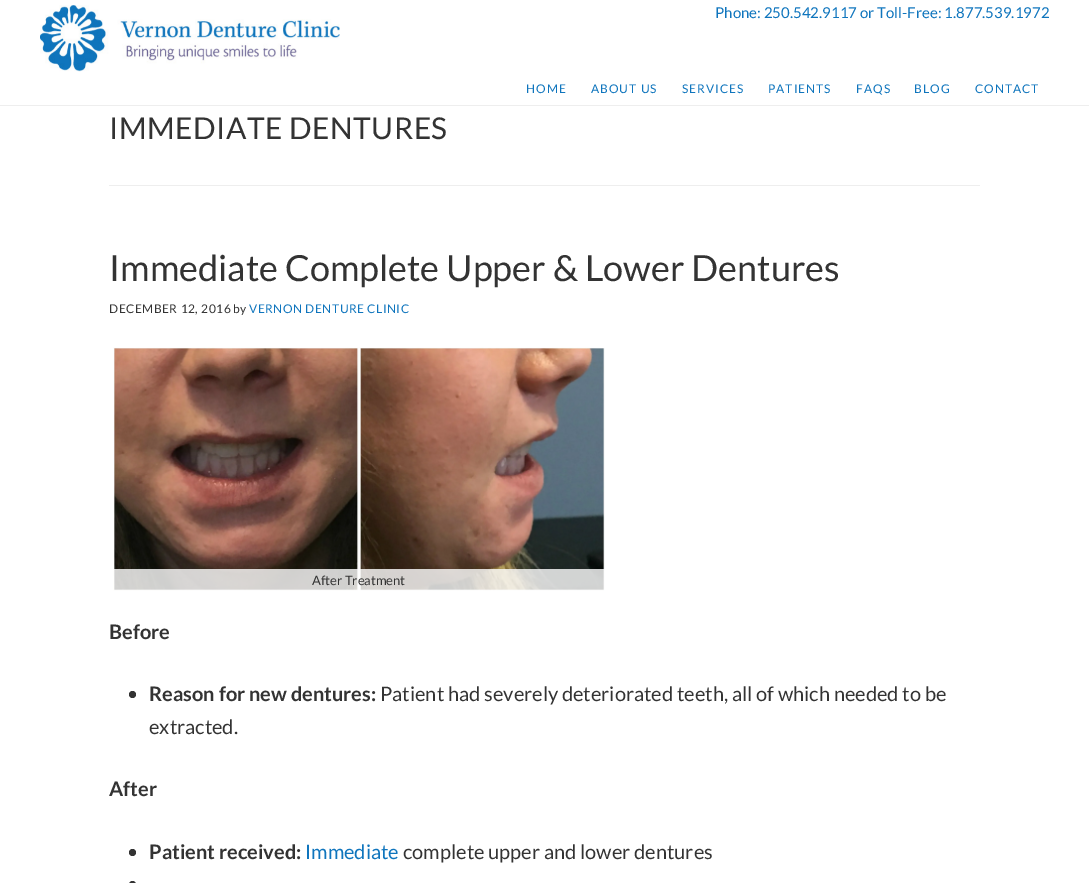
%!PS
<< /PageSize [1089 883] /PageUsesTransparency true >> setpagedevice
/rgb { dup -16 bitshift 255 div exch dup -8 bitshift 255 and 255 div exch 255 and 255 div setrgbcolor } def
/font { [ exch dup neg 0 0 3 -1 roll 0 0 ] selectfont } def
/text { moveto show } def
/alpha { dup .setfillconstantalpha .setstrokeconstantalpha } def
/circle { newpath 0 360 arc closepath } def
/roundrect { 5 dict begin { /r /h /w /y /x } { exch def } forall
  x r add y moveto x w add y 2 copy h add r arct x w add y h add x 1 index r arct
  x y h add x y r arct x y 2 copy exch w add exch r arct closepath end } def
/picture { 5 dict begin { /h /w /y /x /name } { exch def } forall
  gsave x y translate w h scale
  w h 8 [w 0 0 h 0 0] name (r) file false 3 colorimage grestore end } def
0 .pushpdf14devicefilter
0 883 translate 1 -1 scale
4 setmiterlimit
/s1 { /Lato-Regular 15 font 16#0F75BD rgb } def
/s2 { /Lato-Regular 36 font 16#333333 rgb } def
/s3 { /Lato-Regular 12 font 16#333333 rgb } def
/s4 { /Lato-Regular 13 font 16#333333 rgb } def
/s5 { /Lato-Bold 20 font 16#333333 rgb } def
/s6 { /Lato-Regular 20 font 16#333333 rgb } def
/s7 { /Lato-Regular 20 font 16#0F75BD rgb } def
16#FFFFFF rgb
0 0 1089 883 rectfill
16#EEEEEE rgb
0 105 1089 1 rectfill
(pic1.raw) 40 5 300 67 picture
s1
(Phone: 250.542.9117 or Toll-Free: 1.877.539.1972) 715 18 text
/Lato-Regular 12 font
526 93 moveto 1 0 (HOME) ashow
591 93 moveto 1 0 (ABOUT US) ashow
682 93 moveto 1 0 (SERVICES) ashow
768 93 moveto 1 0 (PATIENTS) ashow
856 93 moveto 1 0 (FAQS) ashow
914 93 moveto 1 0 (BLOG) ashow
975 93 moveto 1 0 (CONTACT) ashow
16#EEEEEE rgb
109 185 871 1 rectfill
/Lato-Regular 30 font
16#333333 rgb
109 139 moveto 0.5 0 (IMMEDIATE DENTURES) ashow
s2
(Immediate Complete Upper & Lower Dentures) 109 281 text
/Lato-Regular 12 font
109 313 moveto 0.5 0 (DECEMBER 12, 2016) ashow
(by) 233 313 text
16#0F75BD rgb
249 313 moveto 0.5 0 (VERNON DENTURE CLINIC) ashow
(pic2.raw) 113 347 492 244 picture
0.8 alpha
16#FFFFFF rgb
114 569 491 22 rectfill
1 alpha
s4
(After Treatment) 312 585 text
s5
(Before) 109 639 text
132.5 694.5 3.5 circle fill
(Reason for new dentures:) 149 701 text
s6
(Patient had severely deteriorated teeth, all of which needed to be) 380 701 text
(extracted.) 149 734 text
s5
(After) 109 796 text
132.5 852.5 3.5 circle fill
(Patient received:) 149 859 text
s7
(Immediate) 305 859 text
s6
(complete upper and lower dentures) 403 859 text
129 881 7 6 3.5 roundrect fill
.poppdf14devicefilter showpage
